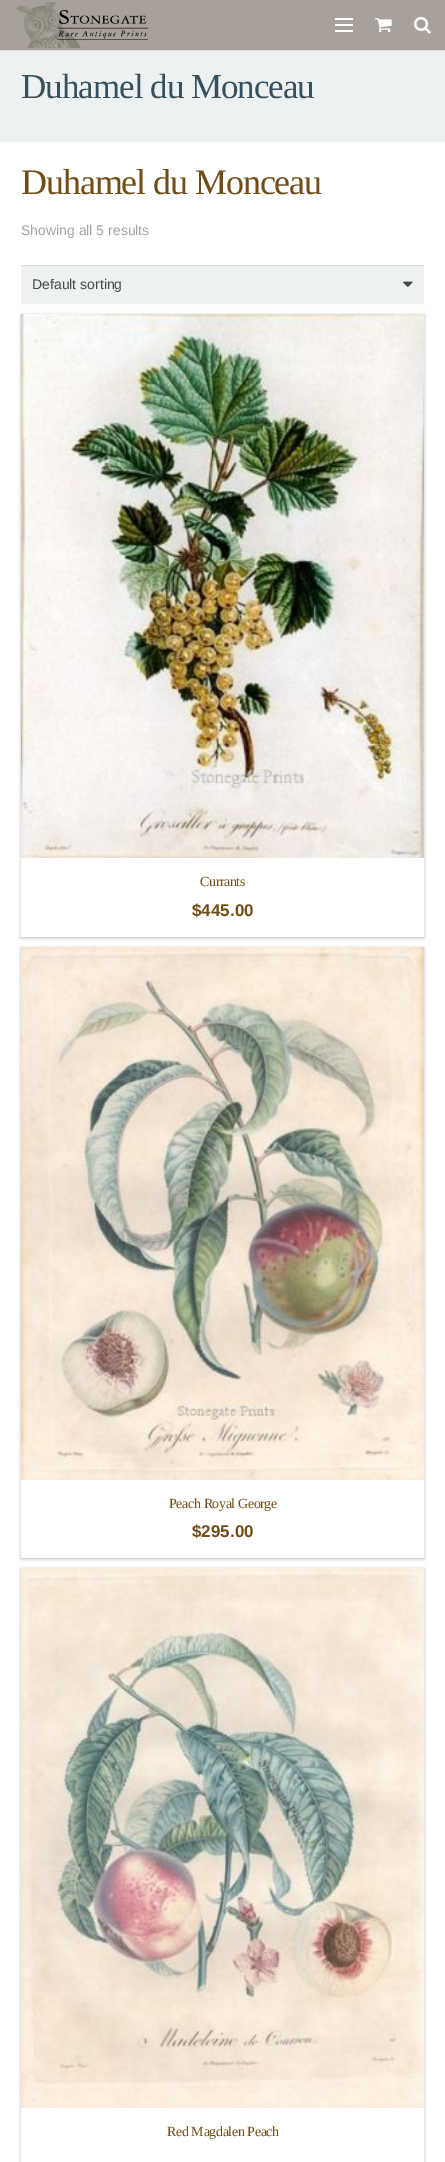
%!PS
<< /PageSize [445 2162] /PageUsesTransparency true >> setpagedevice
/rgb { dup -16 bitshift 255 div exch dup -8 bitshift 255 and 255 div exch 255 and 255 div setrgbcolor } def
/font { [ exch dup neg 0 0 3 -1 roll 0 0 ] selectfont } def
/text { moveto show } def
/alpha { dup .setfillconstantalpha .setstrokeconstantalpha } def
/roundrect { 5 dict begin { /r /h /w /y /x } { exch def } forall
  x r add y moveto x w add y 2 copy h add r arct x w add y h add x 1 index r arct
  x y h add x y r arct x y 2 copy exch w add exch r arct closepath end } def
/shadow { 12 dict begin { /a /b /q /h /w /y /x } { exch def } forall gsave /was 0 def
  9 -2 -9 { dup b mul 4 div /e exch def 1 sub .425 mul 2.718 exch exp 1 add a .99 .min exch div /now exch def
    1 1 now sub 1 was sub div sub alpha /was now def
    w h .min e 2 mul add 0 gt { x e sub y e sub w e 2 mul add h e 2 mul add
      q e add b .6 mul add w h .min 2 div e add .min 0 .max roundrect fill } if } for grestore end } def
/picture { 5 dict begin { /h /w /y /x /name } { exch def } forall
  gsave x y translate w h scale
  w h 8 [w 0 0 h 0 0] name (r) file false 3 colorimage grestore end } def
0 .pushpdf14devicefilter
0 2162 translate 1 -1 scale
4 setmiterlimit
/s1 { /LiberationSans-Regular 14 font 16#A3A3A3 rgb } def
/s2 { /LiberationSans-Regular 14 font 16#474747 rgb } def
/s3 { /LiberationSans-Bold 17 font 16#714D18 rgb } def
16#FFFFFF rgb
0 0 445 2162 rectfill
16#DADEDF rgb
0 50 445 1 rectfill
16#A8A19B rgb
0 0 445 50 rectfill
(pic1.raw) 16 2 132 46 picture
16#FFFFFF rgb
335 24 18 2 rectfill
335 18 18 2 rectfill
335 30 18 2 rectfill
(pic2.raw) 375 18 17 15 picture
(pic3.raw) 414 16 17 18 picture
16#EDF1F2 rgb
0 51 445 91 rectfill
/LiberationSerif-Regular 35 font
16#38505C rgb
21 98 moveto -1 0 (Duhamel du Monceau) ashow
/LiberationSerif-Regular 36 font
16#714D18 rgb
21 194 moveto -1.1 0 (Duhamel du Monceau) ashow
s1
(Showing all 5 results) 21 235 text
16#EDF1F2 rgb
21 266 403 38 rectfill
16#DADEDF rgb
21 265 403 1 rectfill
s2
(Default sorting) 32 289 text
(pic4.raw) 403 281 10 6 picture
gsave
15 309 moveto 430 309 lineto 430 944 lineto 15 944 lineto closepath 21 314 moveto 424 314 lineto 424 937 lineto 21 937 lineto closepath eoclip newpath
16#000000 rgb
21 315 403 623 0 1.5 0.25 shadow
grestore
(pic5.raw) 21 314 403 544 picture
/LiberationSerif-Regular 14 font
16#714D18 rgb
200 886 moveto -0.4 0 (Currants) ashow
s3
($445.00) 192 916 text
gsave
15 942 moveto 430 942 lineto 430 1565 lineto 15 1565 lineto closepath 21 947 moveto 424 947 lineto 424 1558 lineto 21 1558 lineto closepath eoclip newpath
16#000000 rgb
21 948 403 611 0 1.5 0.25 shadow
grestore
(pic6.raw) 21 947 403 533 picture
/LiberationSerif-Regular 14 font
169 1508 moveto -0.4 0 (Peach Royal George) ashow
s3
($295.00) 192 1537 text
gsave
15 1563 moveto 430 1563 lineto 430 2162 lineto 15 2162 lineto closepath 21 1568 moveto 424 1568 lineto 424 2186 lineto 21 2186 lineto closepath eoclip newpath
16#000000 rgb
21 1569 403 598 0 1.5 0.25 shadow
grestore
(pic7.raw) 21 1568 403 540 picture
/LiberationSerif-Regular 14 font
167 2136 moveto -0.4 0 (Red Magdalen Peach) ashow
.poppdf14devicefilter showpage
